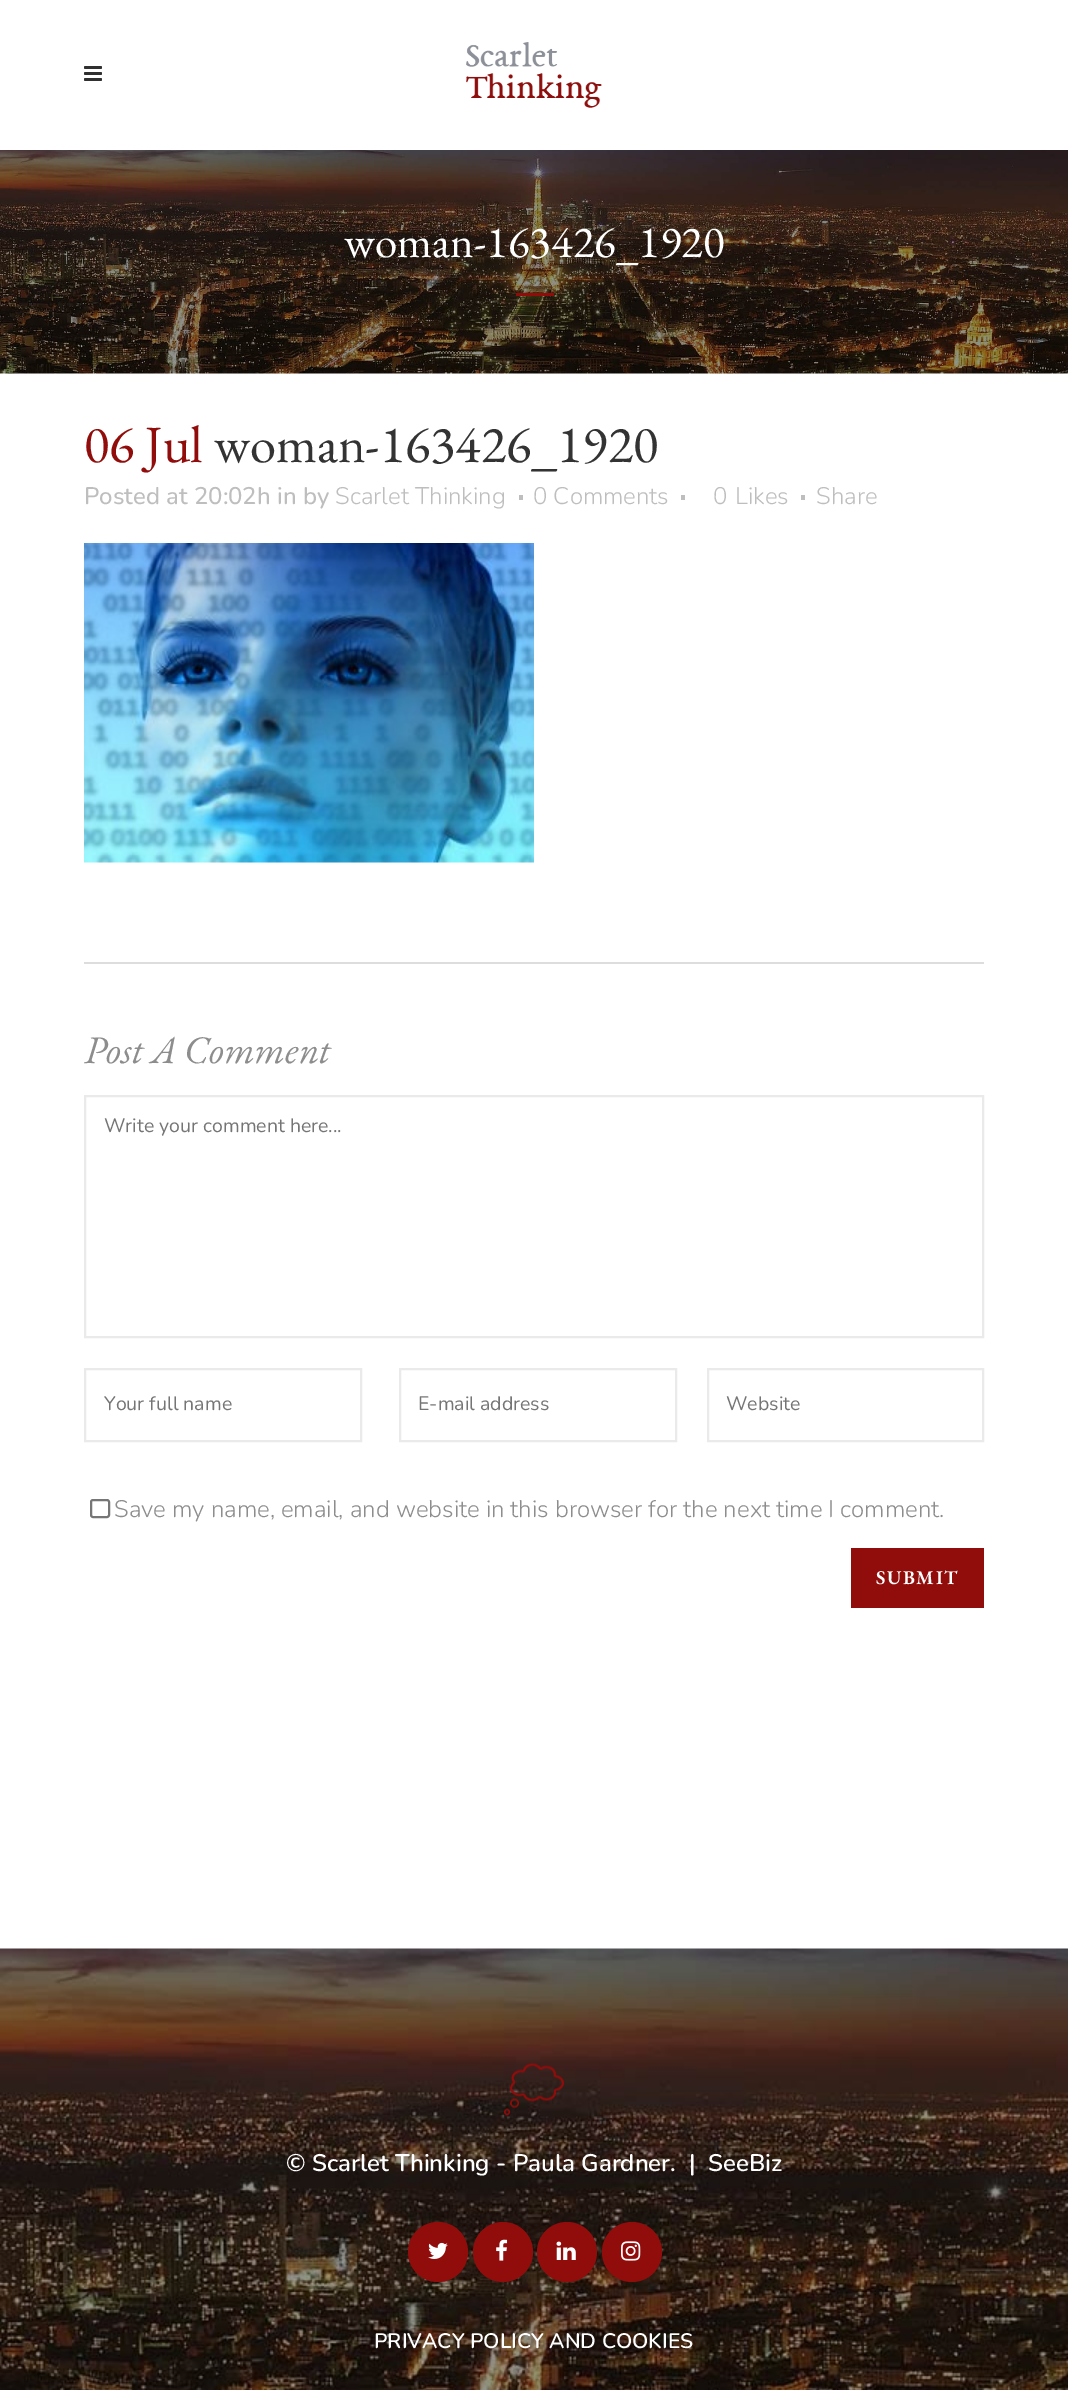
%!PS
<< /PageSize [1068 2390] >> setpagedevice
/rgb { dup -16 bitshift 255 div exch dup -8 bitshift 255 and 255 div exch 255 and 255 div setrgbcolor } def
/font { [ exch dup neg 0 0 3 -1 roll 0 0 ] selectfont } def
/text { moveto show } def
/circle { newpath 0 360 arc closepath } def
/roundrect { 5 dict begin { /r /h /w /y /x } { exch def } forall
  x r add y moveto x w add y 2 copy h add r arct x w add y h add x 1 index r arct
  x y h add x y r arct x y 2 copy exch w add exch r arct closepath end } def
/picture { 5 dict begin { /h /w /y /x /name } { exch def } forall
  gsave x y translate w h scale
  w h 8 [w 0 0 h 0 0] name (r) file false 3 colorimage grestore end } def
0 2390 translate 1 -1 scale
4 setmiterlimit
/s1 { /EBGaramond-Regular 45 font 16#FFFFFF rgb } def
/s2 { /EBGaramond-Regular 52.5 font 16#910D0B rgb } def
/s3 { /EBGaramond-Regular 52.5 font 16#333333 rgb } def
/s4 { /Nunito-Medium 24 font 16#BEBEBE rgb } def
/s5 { /Nunito-Light 24 font 16#BEBEBE rgb } def
/s6 { /EBGaramond-Italic 39 font 16#8D8D8D rgb } def
/s7 { /Nunito-Regular 19.5 font 16#757575 rgb } def
/s8 { /Nunito-Light 24 font 16#8D8D8D rgb } def
/s9 { /Nunito-SemiBold 24 font 16#FFFFFF rgb } def
/s10 { /Nunito-SemiBold 21 font 16#FFFFFF rgb } def
16#FFFFFF rgb
0 0 1068 2390 rectfill
(pic1.raw) 84 66 18 15 picture
(pic2.raw) 466 42 136 66 picture
(pic3.raw) 0 150 1068 224 picture
s1
(woman-163426_1920) 344 257 text
16#910D0B rgb
516 293 38 3 rectfill
s2
(06 Jul) 84 462 text
s3
(woman-163426_1920) 214 462 text
s4
(Posted at 20:02h in by) 84 504 text
s5
(Scarlet Thinking) 335 504 text
519 495 4 5 rectfill
(0 Comments) 533 504 text
681 495 4 5 rectfill
(0) 713 504 text
(Likes) 735 504 text
801 495 4 5 rectfill
(Share) 816 504 text
(pic4.raw) 84 543 450 320 picture
16#DDDDDD rgb
84 962 900 2 rectfill
s6
(Post A Comment) 84 1063 text
16#EAEAEA rgb
2 setlinewidth
85 1096 898 241 rectstroke
s7
(Write your comment here...) 104 1132 text
16#EAEAEA rgb
85 1369 276 72 rectstroke
s7
(Your full name) 104 1410 text
16#EAEAEA rgb
400 1369 276 72 rectstroke
s7
(E-mail address) 418 1410 text
16#EAEAEA rgb
708 1369 275 72 rectstroke
s7
(Website) 726 1410 text
16#767676 rgb
91 1500 18 17 2 roundrect stroke
s8
(Save my name, email, and website in this browser for the next time I comment.) 114 1517 text
16#910D0B rgb
851 1548 133 60 rectfill
/EBGaramond-SemiBold 19.5 font
16#FFFFFF rgb
876 1584 moveto 1.5 0 (SUBMIT) ashow
(pic5.raw) 0 1948 1068 442 picture
(pic6.raw) 504 2063 60 53 picture
s9
(© Scarlet Thinking - Paula Gardner.  |) 286 2171 text
(SeeBiz) 708 2171 text
16#910D0B rgb
438 2252 30 circle fill
(pic7.raw) 428 2242 20 17 picture
503 2252 30 circle fill
(pic8.raw) 496 2239 12 22 picture
567 2252 30 circle fill
(pic9.raw) 556 2241 20 19 picture
632 2252 30 circle fill
(pic10.raw) 621 2241 20 20 picture
s10
(PRIVACY POLICY AND COOKIES) 374 2348 text
showpage
